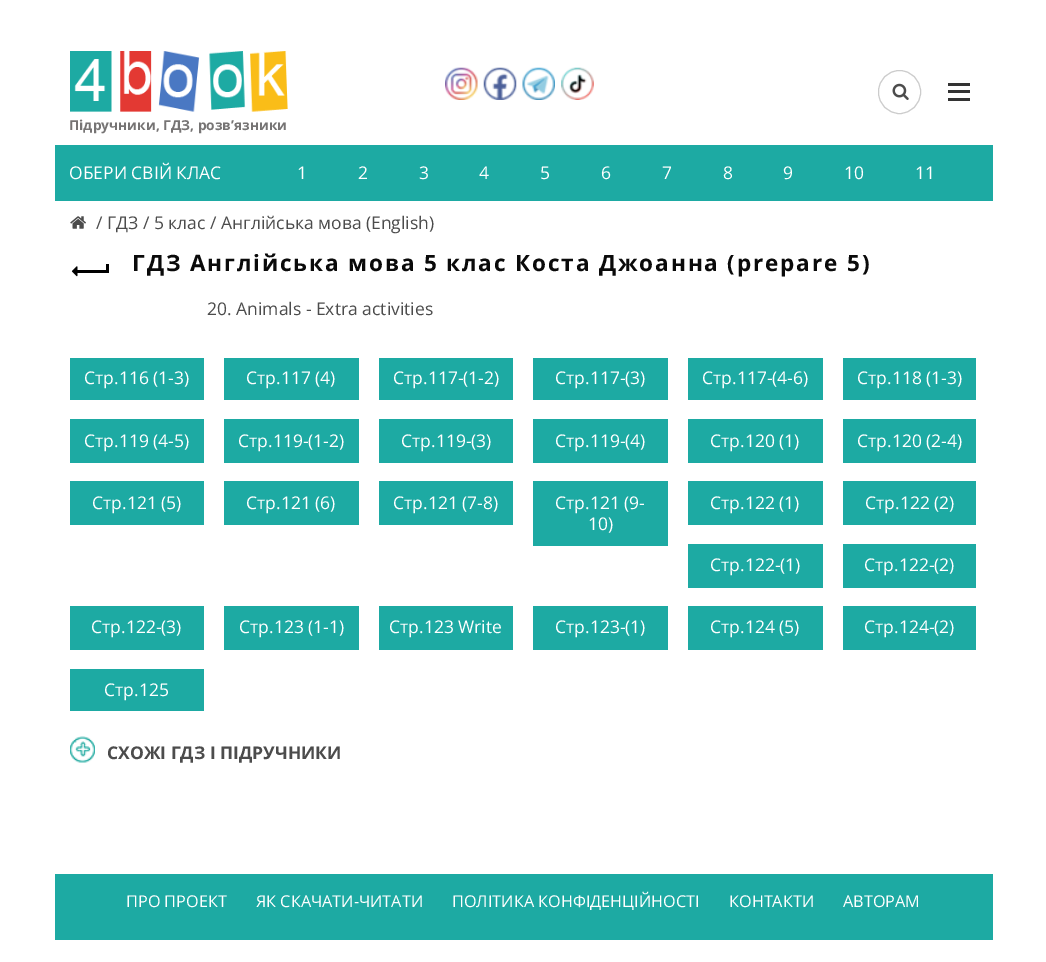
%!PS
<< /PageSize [1046 962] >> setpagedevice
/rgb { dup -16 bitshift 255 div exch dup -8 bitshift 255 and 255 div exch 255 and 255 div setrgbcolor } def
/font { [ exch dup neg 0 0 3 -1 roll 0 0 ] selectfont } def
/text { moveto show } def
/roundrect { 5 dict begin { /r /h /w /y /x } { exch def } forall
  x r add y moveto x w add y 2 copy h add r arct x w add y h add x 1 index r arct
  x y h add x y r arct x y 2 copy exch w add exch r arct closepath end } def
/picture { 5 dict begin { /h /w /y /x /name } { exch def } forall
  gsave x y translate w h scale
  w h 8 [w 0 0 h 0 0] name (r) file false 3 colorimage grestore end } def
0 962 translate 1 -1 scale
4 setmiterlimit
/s1 { /OpenSans-Bold 13.75 font 16#767474 rgb } def
/s2 { /OpenSans-Regular 17.5 font 16#FFFFFF rgb } def
/s3 { /OpenSans-Regular 17.5 font 16#4C4C4C rgb } def
/s4 { /OpenSans-Bold 17.5 font 16#4C4C4C rgb } def
/s5 { /OpenSans-Regular 16.25 font 16#FFFFFF rgb } def
16#FFFFFF rgb
0 0 1046 962 rectfill
(pic1.raw) 445 67 33 33 picture
(pic2.raw) 483 67 34 33 picture
(pic3.raw) 522 67 33 33 picture
(pic4.raw) 561 67 33 33 picture
(pic5.raw) 892 83 17 17 picture
16#CCCCCC rgb
878.5 70.5 42 43 21 roundrect stroke
16#333333 rgb
948 90 22 3 rectfill
948 83 22 3 rectfill
948 98 22 3 rectfill
(pic6.raw) 70 51 218 61 picture
s1
(Підручники, ГДЗ, розв’язники) 69 130 text
16#1DAAA3 rgb
55 145 938 56 rectfill
s2
(ОБЕРИ СВІЙ КЛАС) 69 179 text
(1) 297 179 text
(2) 358 179 text
(3) 419 179 text
(4) 479 179 text
(5) 540 179 text
(6) 601 179 text
(7) 662 179 text
(8) 723 179 text
(9) 783 179 text
(10) 844 179 text
(11) 915 179 text
(pic7.raw) 70 216 16 13 picture
s3
(/ ГДЗ / 5 клас / Англійська мова \(English\)) 96 229 text
16#000000 rgb
76 270 32 3 rectfill
(pic8.raw) 71 266 7 11 picture
106 264 3 9 rectfill
/OpenSans-Bold 22.5 font
16#0A0A0A rgb
132 271 moveto 1.88 0 (ГДЗ Англійська мова 5 клас Коста Джоанна \(prepare 5\)) ashow
s3
(20. Animals - Extra activities) 207 315 text
16#1DAAA3 rgb
70 358 134 42 rectfill
s2
(Стр.116 \(1-3\)) 84 384 text
16#1DAAA3 rgb
224 358 135 42 rectfill
s2
(Стр.117 \(4\)) 246 384 text
16#1DAAA3 rgb
379 358 134 42 rectfill
s2
(Стр.117-\(1-2\)) 393 384 text
16#1DAAA3 rgb
533 358 135 42 rectfill
s2
(Стр.117-\(3\)) 555 384 text
16#1DAAA3 rgb
688 358 135 42 rectfill
s2
(Стр.117-\(4-6\)) 702 384 text
16#1DAAA3 rgb
843 358 133 42 rectfill
s2
(Стр.118 \(1-3\)) 857 384 text
16#1DAAA3 rgb
70 419 134 44 rectfill
s2
(Стр.119 \(4-5\)) 84 447 text
16#1DAAA3 rgb
224 419 135 44 rectfill
s2
(Стр.119-\(1-2\)) 238 447 text
16#1DAAA3 rgb
379 419 134 44 rectfill
s2
(Стр.119-\(3\)) 401 447 text
16#1DAAA3 rgb
533 419 135 44 rectfill
s2
(Стр.119-\(4\)) 555 447 text
16#1DAAA3 rgb
688 419 135 44 rectfill
s2
(Стр.120 \(1\)) 710 447 text
16#1DAAA3 rgb
843 419 133 44 rectfill
s2
(Стр.120 \(2-4\)) 857 447 text
16#1DAAA3 rgb
70 481 134 44 rectfill
s2
(Стр.121 \(5\)) 92 509 text
16#1DAAA3 rgb
224 481 135 44 rectfill
s2
(Стр.121 \(6\)) 246 509 text
16#1DAAA3 rgb
379 481 134 44 rectfill
s2
(Стр.121 \(7-8\)) 393 509 text
16#1DAAA3 rgb
533 481 135 65 rectfill
s2
(Стр.121 \(9-) 555 509 text
(10\)) 588 530 text
16#1DAAA3 rgb
688 481 135 44 rectfill
s2
(Стр.122 \(1\)) 710 509 text
16#1DAAA3 rgb
843 481 133 44 rectfill
s2
(Стр.122 \(2\)) 865 509 text
16#1DAAA3 rgb
688 544 135 44 rectfill
s2
(Стр.122-\(1\)) 710 571 text
16#1DAAA3 rgb
843 544 133 44 rectfill
s2
(Стр.122-\(2\)) 864 571 text
16#1DAAA3 rgb
70 606 134 44 rectfill
s2
(Стр.122-\(3\)) 91 633 text
16#1DAAA3 rgb
224 606 135 44 rectfill
s2
(Стр.123 \(1-1\)) 239 633 text
16#1DAAA3 rgb
379 606 134 44 rectfill
s2
(Стр.123 Write) 389 633 text
16#1DAAA3 rgb
533 606 135 44 rectfill
s2
(Стр.123-\(1\)) 555 633 text
16#1DAAA3 rgb
688 606 135 44 rectfill
s2
(Стр.124 \(5\)) 710 633 text
16#1DAAA3 rgb
843 606 133 44 rectfill
s2
(Стр.124-\(2\)) 864 633 text
16#1DAAA3 rgb
70 669 134 42 rectfill
s2
(Стр.125) 104 696 text
(pic9.raw) 70 736 25 27 picture
s4
(СХОЖІ ГДЗ І ПІДРУЧНИКИ) 107 759 text
16#1DAAA3 rgb
55 874 938 66 rectfill
s5
(ПРО ПРОЕКТ) 126 907 text
(ЯК СКАЧАТИ-ЧИТАТИ) 256 907 text
(ПОЛІТИКА КОНФІДЕНЦІЙНОСТІ) 452 907 text
(КОНТАКТИ) 729 907 text
(АВТОРАМ) 843 907 text
showpage
